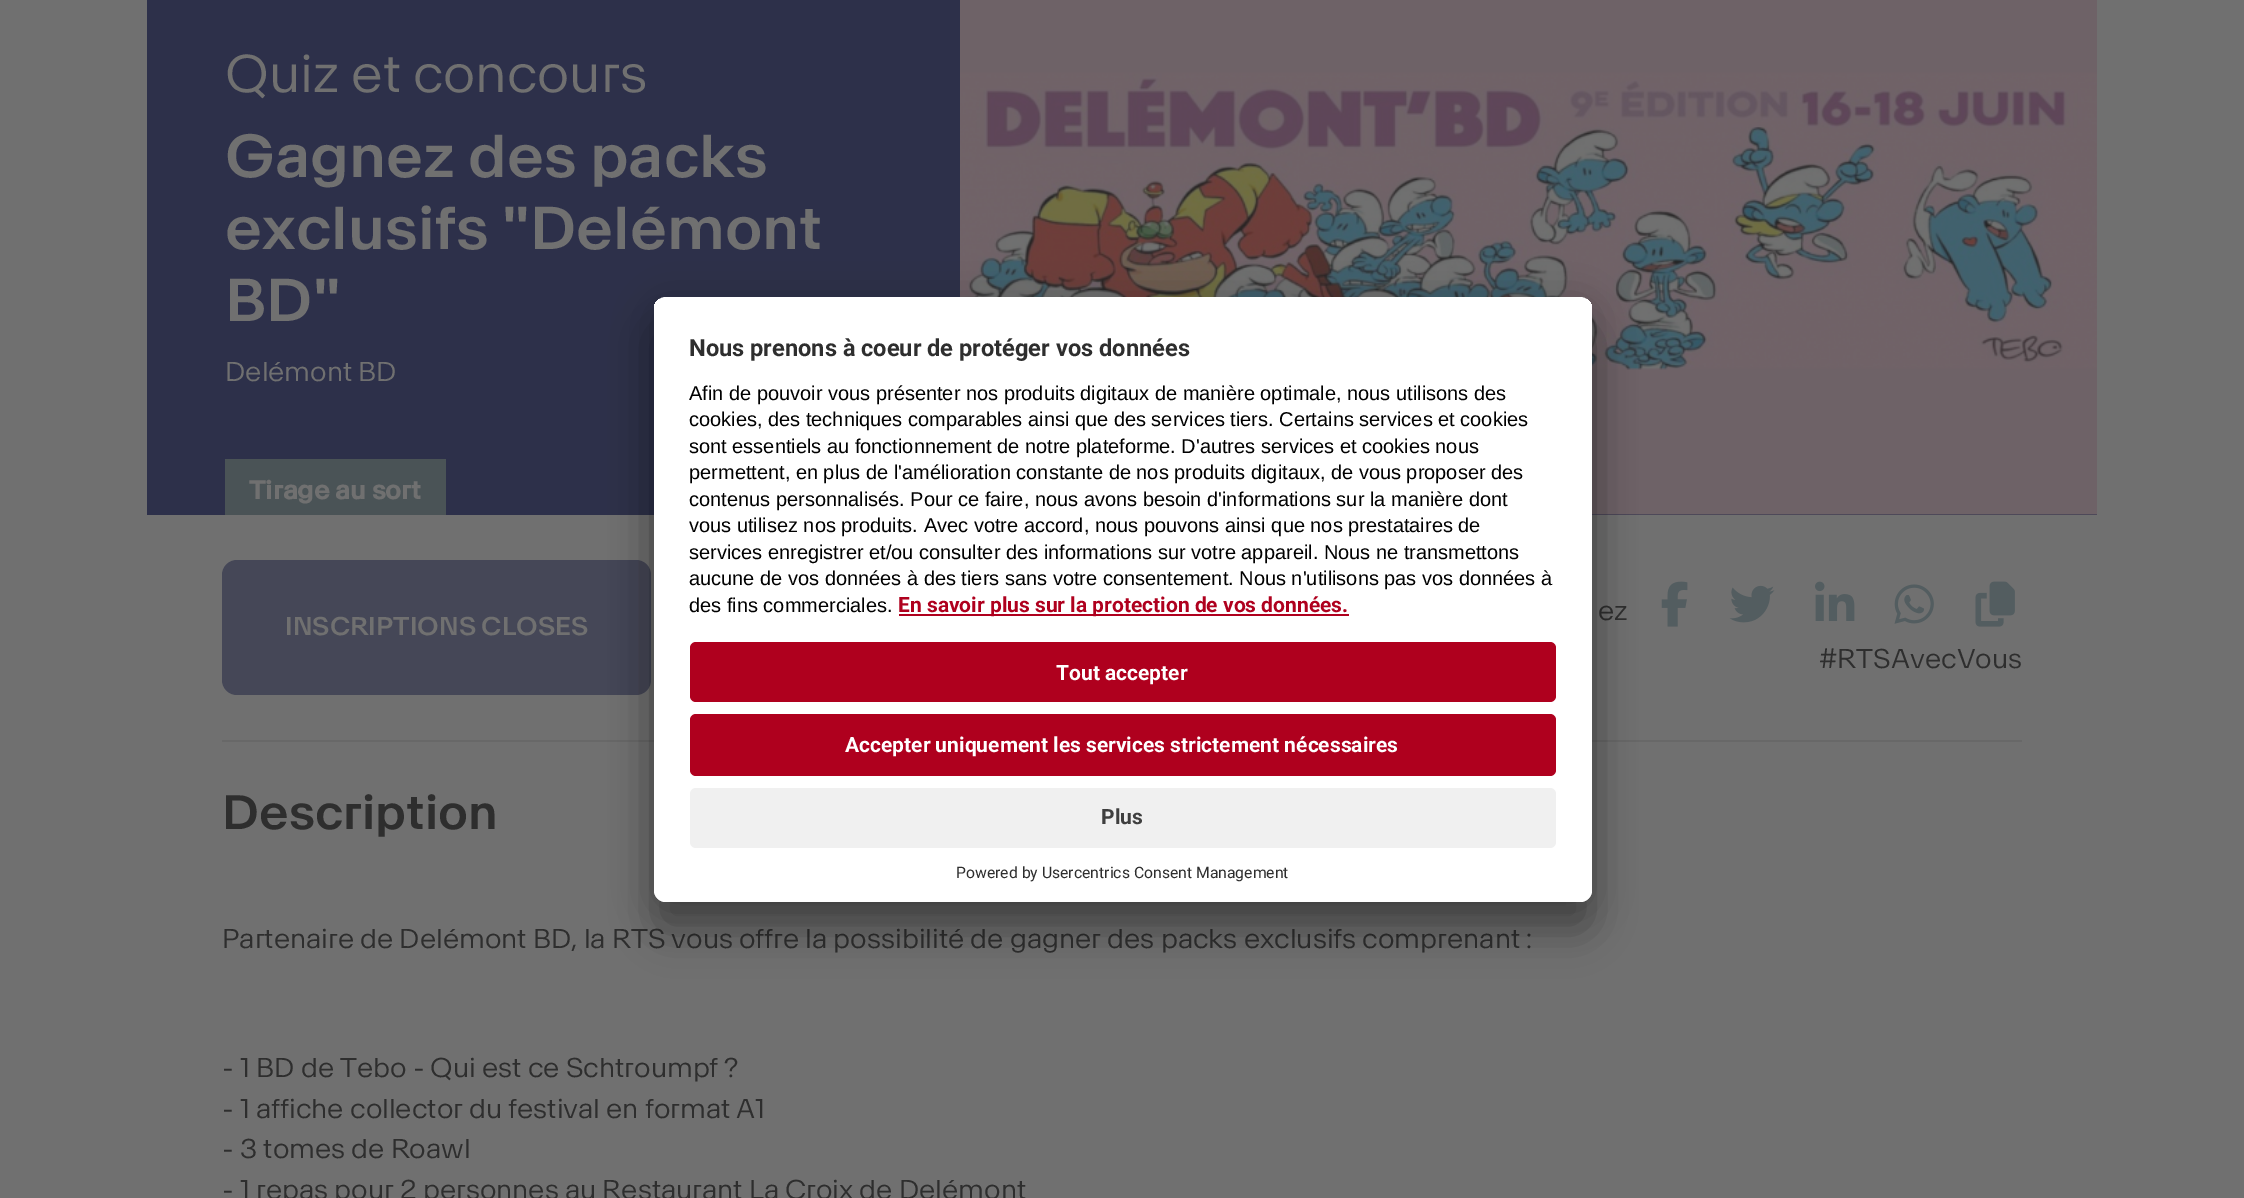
%!PS
<< /PageSize [2244 1198] /PageUsesTransparency true >> setpagedevice
/rgb { dup -16 bitshift 255 div exch dup -8 bitshift 255 and 255 div exch 255 and 255 div setrgbcolor } def
/font { [ exch dup neg 0 0 3 -1 roll 0 0 ] selectfont } def
/text { moveto show } def
/alpha { dup .setfillconstantalpha .setstrokeconstantalpha } def
/roundrect { 5 dict begin { /r /h /w /y /x } { exch def } forall
  x r add y moveto x w add y 2 copy h add r arct x w add y h add x 1 index r arct
  x y h add x y r arct x y 2 copy exch w add exch r arct closepath end } def
/shadow { 12 dict begin { /a /b /q /h /w /y /x } { exch def } forall gsave /was 0 def
  9 -2 -9 { dup b mul 4 div /e exch def 1 sub .425 mul 2.718 exch exp 1 add a .99 .min exch div /now exch def
    1 1 now sub 1 was sub div sub alpha /was now def
    w h .min e 2 mul add 0 gt { x e sub y e sub w e 2 mul add h e 2 mul add
      q e add b .6 mul add w h .min 2 div e add .min 0 .max roundrect fill } if } for grestore end } def
/picture { 5 dict begin { /h /w /y /x /name } { exch def } forall
  gsave x y translate w h scale
  w h 8 [w 0 0 h 0 0] name (r) file false 3 colorimage grestore end } def
0 .pushpdf14devicefilter
0 1198 translate 1 -1 scale
4 setmiterlimit
/s1 { /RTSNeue-Light 52.5 font 16#707070 rgb } def
/s2 { /RTSNeue-Medium 60 font 16#707070 rgb } def
/s3 { /RTSNeue-Light 27 font 16#707070 rgb } def
/s4 { /RTSNeue-Bold 25.5 font 16#707070 rgb } def
/s5 { /RTSNeue-Medium 25.5 font 16#707070 rgb } def
/s6 { /RTSNeue-Light 27 font 16#2E2E2E rgb } def
/s7 { /RTSNeue-Medium 48 font 16#2E2E2E rgb } def
/s8 { /Roboto-Bold 23.6 font 16#2E2E2E rgb } def
/s9 { /LiberationSans-Regular 20 font 16#000000 rgb } def
/s10 { /Roboto-Bold 21 font 16#AF001E rgb } def
/s11 { /Roboto-Bold 21 font 16#FFFFFF rgb } def
/s12 { /Roboto-Bold 21 font 16#3F3F3F rgb } def
/s13 { /Roboto-Regular 15.75 font 16#2E2E2E rgb } def
16#707070 rgb
0 0 2244 1198 rectfill
16#2D304A rgb
147 0 1950 515 rectfill
s1
(Quiz et concours) 225 92 text
s2
(Gagnez des packs) 225 177 text
(exclusifs "Delémont) 225 249 text
(BD") 225 321 text
s3
(Delémont BD) 225 381 text
(pic1.raw) 960 0 1137 515 picture
16#4A5356 rgb
225 459 221 56 rectfill
s4
(Tirage au sort) 249 499 text
16#686868 rgb
222 740 1800 2 rectfill
16#454757 rgb
222 560 429 135 15 roundrect fill
s5
(INSCRIPTIONS CLOSES) 285 635 text
s6
(ez) 1598 620 text
(pic2.raw) 1661 581 27 46 picture
(pic3.raw) 1729 585 46 38 picture
(pic4.raw) 1815 581 40 40 picture
(pic5.raw) 1894 584 40 40 picture
(pic6.raw) 1975 581 40 46 picture
(#RTSAvecVous) 1819 668 text
s7
(Description) 222 829 text
s6
(Partenaire de Delémont BD, la RTS vous offre la possibilité de gagner des packs exclusifs comprenant :) 222 948 text
(- 1 BD de Tebo - Qui est ce Schtroumpf ?) 222 1077 text
(- 1 affiche collector du festival en format A1) 222 1118 text
(- 3 tomes de Roawl) 222 1158 text
(- 1 repas pour 2 personnes au Restaurant La Croix de Delémont) 222 1199 text
16#000000 rgb
654 327 938 605 12 21 0.3 shadow
654 305 938 604 12 19.5 0.22 shadow
16#FFFFFF rgb
654 297 938 605 12 roundrect fill
gsave
654 297 938 605 12 roundrect clip newpath
666 297 moveto 1580 297 lineto 1586.5 297 1592 302.5 1592 309 curveto 1592 624 lineto 654 624 lineto 654 309 lineto 654 302.5 659.5 297 666 297 curveto closepath clip newpath
654 299 938 325 rectfill
grestore
s8
(Nous prenons à coeur de protéger vos données) 689 356 text
s9
(Afin de pouvoir vous présenter nos produits digitaux de manière optimale, nous utilisons des) 689 400 text
(cookies, des techniques comparables ainsi que des services tiers. Certains services et cookies) 689 426 text
(sont essentiels au fonctionnement de notre plateforme. D'autres services et cookies nous) 689 453 text
(permettent, en plus de l'amélioration constante de nos produits digitaux, de vous proposer des) 689 479 text
(contenus personnalisés. Pour ce faire, nous avons besoin d'informations sur la manière dont) 689 506 text
(vous utilisez nos produits. Avec votre accord, nous pouvons ainsi que nos prestataires de) 689 532 text
(services enregistrer et/ou consulter des informations sur votre appareil. Nous ne transmettons) 689 559 text
(aucune de vos données à des tiers sans votre consentement. Nous n'utilisons pas vos données à) 689 585 text
(des fins commerciales.) 689 612 text
16#AF001E rgb
899 614 450 2 rectfill
s10
(En savoir plus sur la protection de vos données.) 898 612 text
16#FFFFFF rgb
654 624 moveto 1592 624 lineto 1592 890 lineto 1592 896.5 1586.5 902 1580 902 curveto 666 902 lineto 659.5 902 654 896.5 654 890 curveto closepath fill
16#AF001E rgb
690 642 866 60 6 roundrect fill
s11
(Tout accepter) 1056 680 text
16#AF001E rgb
690 714 866 62 6 roundrect fill
s11
(Accepter uniquement les services strictement nécessaires) 845 752 text
16#F0F0F0 rgb
690 788 866 60 6 roundrect fill
s12
(Plus) 1101 824 text
s13
(Powered by Usercentrics Consent Management) 956 878 text
.poppdf14devicefilter showpage
